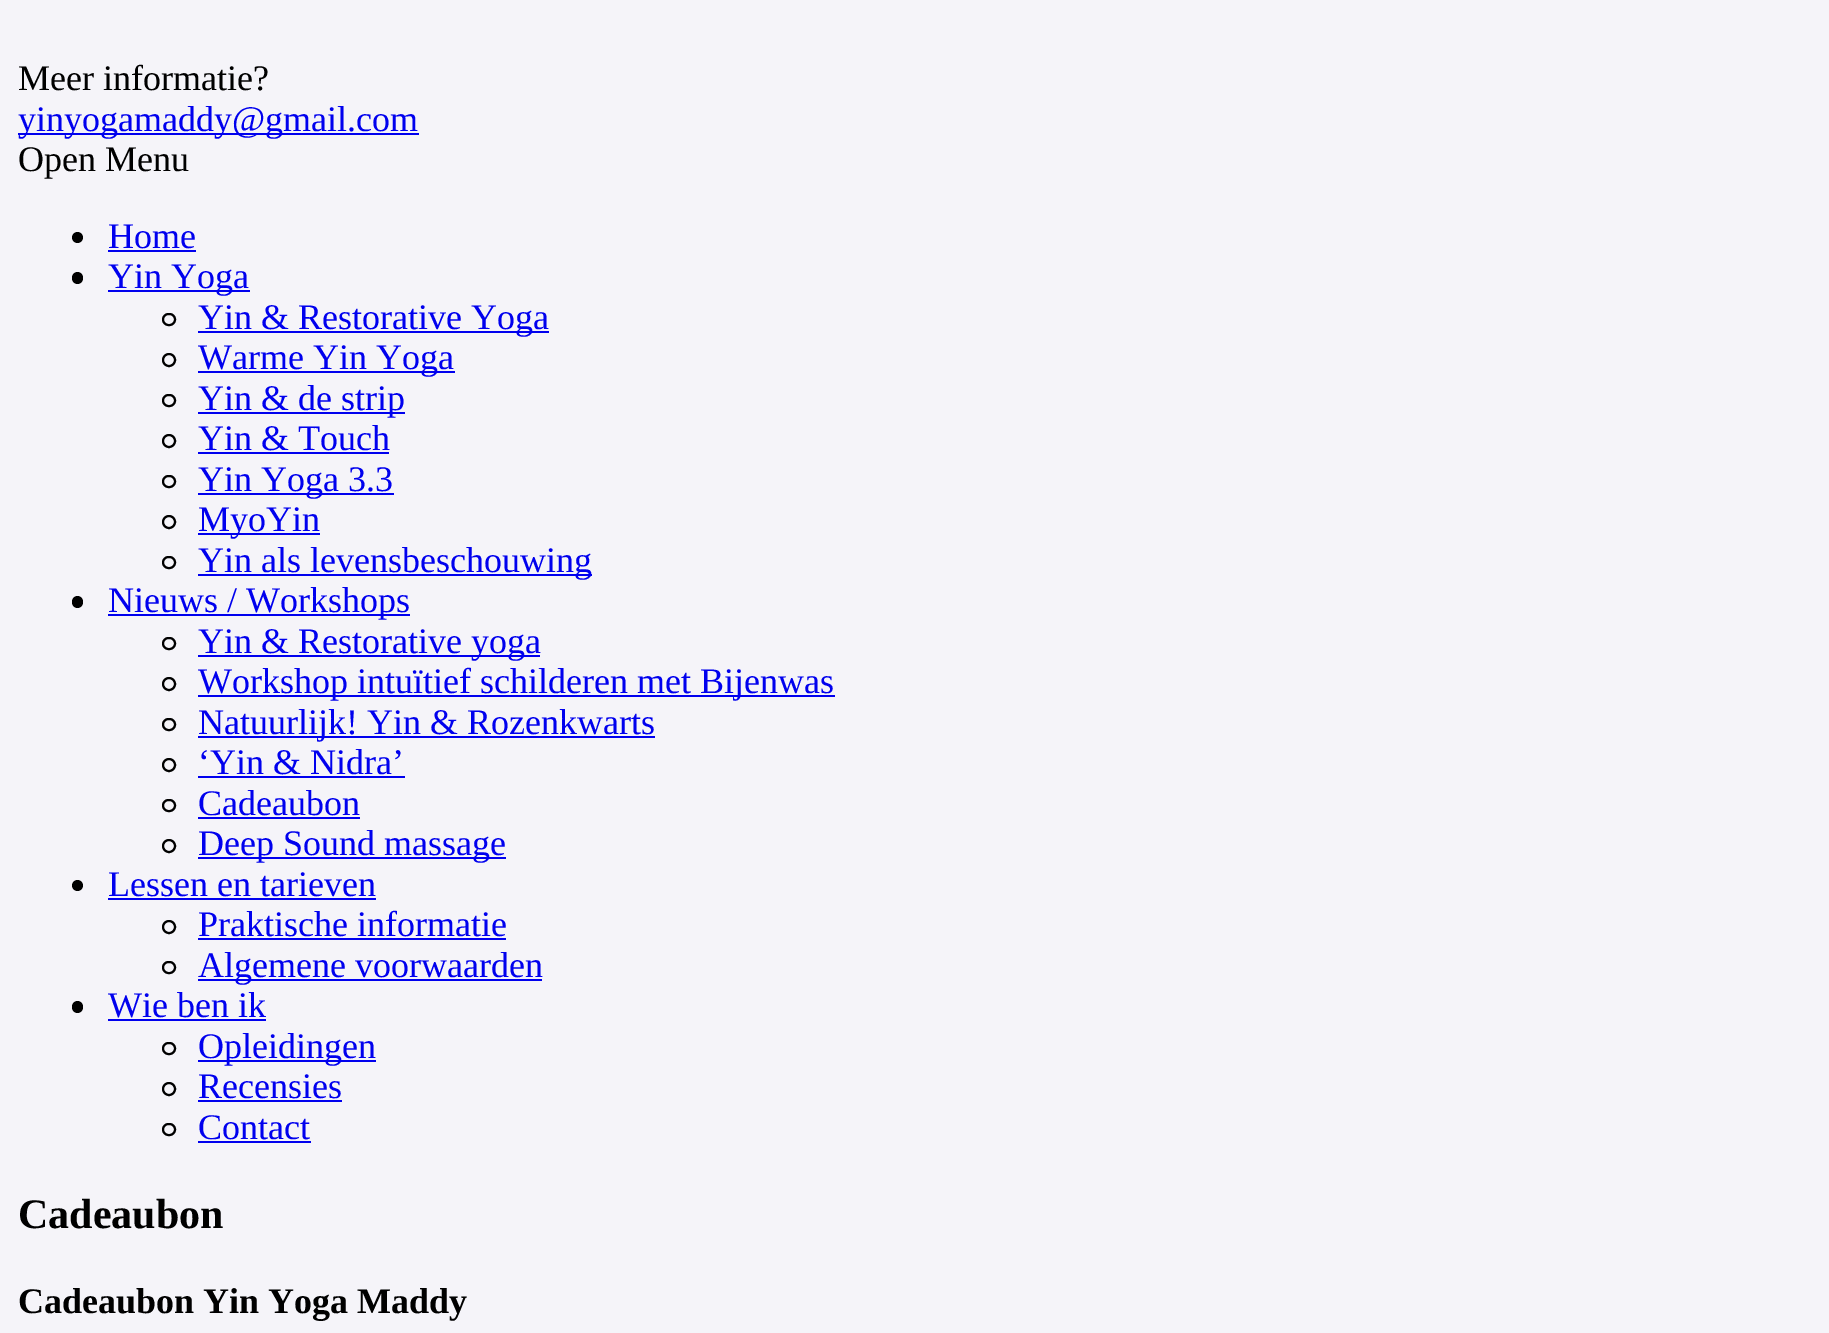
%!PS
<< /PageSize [1829 1333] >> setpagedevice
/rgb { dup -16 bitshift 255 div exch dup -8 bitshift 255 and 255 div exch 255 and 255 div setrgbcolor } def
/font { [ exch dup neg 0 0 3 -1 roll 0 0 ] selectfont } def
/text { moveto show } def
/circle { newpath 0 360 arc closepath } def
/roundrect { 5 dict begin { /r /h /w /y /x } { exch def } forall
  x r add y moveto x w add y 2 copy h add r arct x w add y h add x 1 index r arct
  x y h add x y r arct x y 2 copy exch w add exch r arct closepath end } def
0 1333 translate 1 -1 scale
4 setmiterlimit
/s1 { /LiberationSerif-Regular 36 font 16#000000 rgb } def
/s2 { /LiberationSerif-Regular 36 font 16#0000EE rgb } def
/s3 { /LiberationSerif-Bold 42 font 16#000000 rgb } def
/s4 { /LiberationSerif-Bold 36 font 16#000000 rgb } def
16#F5F4F9 rgb
0 0 1829 1333 rectfill
s1
(Meer informatie?) 18 90 text
16#0000EE rgb
18 133 401 2 rectfill
(yinyogamaddy@gmail.com) 18 131 text
s1
(Open Menu) 18 171 text
77.5 237.5 5.5 circle fill
s2
(Home) 108 248 text
108 250 88 2 rectfill
16#000000 rgb
72 272 11 12 5.5 roundrect fill
16#0000EE rgb
108 290 142 2 rectfill
(Yin Yoga) 108 288 text
16#000000 rgb
2 setlinewidth
163 314 12 11 5.5 roundrect stroke
16#0000EE rgb
198 331 351 2 rectfill
(Yin & Restorative Yoga) 198 329 text
16#000000 rgb
169 360 6 circle stroke
16#0000EE rgb
198 371 257 2 rectfill
(Warme Yin Yoga) 198 369 text
16#000000 rgb
163 395 12 11 5.5 roundrect stroke
16#0000EE rgb
198 412 207 2 rectfill
(Yin & de strip) 198 410 text
16#000000 rgb
169 441 6 circle stroke
s2
(Yin & Touch) 198 450 text
198 452 191 2 rectfill
16#000000 rgb
163 476 12 11 5.5 roundrect stroke
16#0000EE rgb
198 493 196 2 rectfill
(Yin Yoga 3.3) 198 491 text
16#000000 rgb
169 522 6 circle stroke
16#0000EE rgb
198 533 122 2 rectfill
(MyoYin) 198 531 text
16#000000 rgb
163 557 12 11 5.5 roundrect stroke
16#0000EE rgb
198 574 394 2 rectfill
(Yin als levensbeschouwing) 198 572 text
16#000000 rgb
72 596 11 12 5.5 roundrect fill
16#0000EE rgb
108 614 302 2 rectfill
(Nieuws / Workshops) 108 612 text
16#000000 rgb
163 638 12 11 5.5 roundrect stroke
16#0000EE rgb
198 655 342 2 rectfill
(Yin & Restorative yoga) 198 653 text
16#000000 rgb
169 684 6 circle stroke
16#0000EE rgb
198 695 637 2 rectfill
(Workshop intuïtief schilderen met Bijenwas) 198 693 text
16#000000 rgb
163 719 12 11 5.5 roundrect stroke
16#0000EE rgb
198 736 457 2 rectfill
(Natuurlijk! Yin & Rozenkwarts) 198 734 text
16#000000 rgb
169 765 6 circle stroke
s2
(‘Yin & Nidra’) 198 774 text
198 776 207 2 rectfill
16#000000 rgb
163 800 12 11 5.5 roundrect stroke
s2
(Cadeaubon) 198 815 text
198 817 162 2 rectfill
16#000000 rgb
169 846 6 circle stroke
16#0000EE rgb
198 857 308 2 rectfill
(Deep Sound massage) 198 855 text
16#000000 rgb
77.5 885.5 5.5 circle fill
s2
(Lessen en tarieven) 108 896 text
108 898 268 2 rectfill
16#000000 rgb
169 927 6 circle stroke
s2
(Praktische informatie) 198 936 text
198 938 308 2 rectfill
16#000000 rgb
163 962 12 11 5.5 roundrect stroke
16#0000EE rgb
198 979 344 2 rectfill
(Algemene voorwaarden) 198 977 text
16#000000 rgb
72 1001 11 12 5.5 roundrect fill
s2
(Wie ben ik) 108 1017 text
108 1019 158 2 rectfill
16#000000 rgb
163 1043 12 11 5.5 roundrect stroke
16#0000EE rgb
198 1060 178 2 rectfill
(Opleidingen) 198 1058 text
16#000000 rgb
169 1089 6 circle stroke
s2
(Recensies) 198 1098 text
198 1100 144 2 rectfill
16#000000 rgb
163 1124 12 11 5.5 roundrect stroke
s2
(Contact) 198 1139 text
198 1141 113 2 rectfill
s3
(Cadeaubon) 18 1228 text
s4
(Cadeaubon Yin Yoga Maddy) 18 1313 text
showpage
